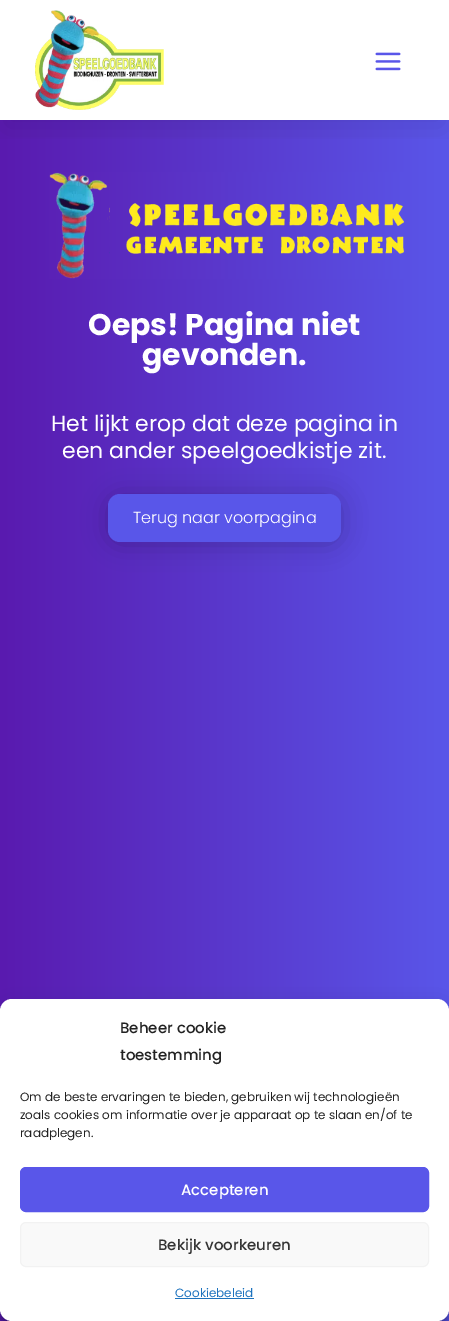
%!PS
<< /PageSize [449 1321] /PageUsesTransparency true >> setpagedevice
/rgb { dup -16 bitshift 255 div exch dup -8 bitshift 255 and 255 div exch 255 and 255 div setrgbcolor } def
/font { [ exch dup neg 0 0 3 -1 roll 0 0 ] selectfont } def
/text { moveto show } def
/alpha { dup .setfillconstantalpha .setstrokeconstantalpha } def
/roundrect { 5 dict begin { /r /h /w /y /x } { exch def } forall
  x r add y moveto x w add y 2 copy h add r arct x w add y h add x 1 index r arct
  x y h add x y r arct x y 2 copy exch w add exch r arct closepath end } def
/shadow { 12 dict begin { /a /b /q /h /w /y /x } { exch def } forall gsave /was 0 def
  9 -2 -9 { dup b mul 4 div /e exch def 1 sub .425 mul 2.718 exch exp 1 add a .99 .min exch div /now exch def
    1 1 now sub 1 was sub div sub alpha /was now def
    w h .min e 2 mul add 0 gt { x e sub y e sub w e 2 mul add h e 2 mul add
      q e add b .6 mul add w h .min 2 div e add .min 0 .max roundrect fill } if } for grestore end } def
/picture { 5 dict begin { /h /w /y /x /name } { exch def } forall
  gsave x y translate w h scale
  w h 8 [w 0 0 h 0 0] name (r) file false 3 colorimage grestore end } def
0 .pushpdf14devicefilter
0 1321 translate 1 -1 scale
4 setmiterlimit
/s1 { /Poppins-Bold 30 font 16#FFFFFF rgb } def
/s2 { /Poppins-Regular 22 font 16#FFFFFF rgb } def
/s3 { /Poppins-Light 16 font 16#FFFFFF rgb } def
/s4 { /Poppins-Medium 15 font 16#222222 rgb } def
/s5 { /Poppins-Regular 12 font 16#222222 rgb } def
/s6 { /Poppins-Medium 15 font 16#FFFFFF rgb } def
/s7 { /Poppins-Medium 15 font 16#333333 rgb } def
/s8 { /Poppins-Regular 12 font 16#1E73BE rgb } def
16#FFFFFF rgb
0 0 449 1321 rectfill
gsave 0 120 moveto 449 120 lineto 449 1321 lineto 0 1321 lineto closepath clip newpath
<< /ShadingType 2 /ColorSpace /DeviceRGB /Coords [0 781 449 781] /Extend [true true] /Function << /FunctionType 2 /Domain [0 1] /C0 [0.353 0.102 0.686] /C1 [0.349 0.337 0.914] /N 1 >> >> shfill grestore
gsave
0 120 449 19 rectclip
16#000000 rgb
6 18 437 108 0 15 0.1 shadow
grestore
(pic1.raw) 35 10 129 100 picture
(pic2.raw) 375 52 26 19 picture
(pic3.raw) 49 172 355 107 picture
s1
(Oeps! Pagina niet) 88 335 text
(gevonden.) 142 365 text
s2
(Het lijkt erop dat deze pagina in) 51 431 text
(een ander speelgoedkistje zit.) 62 458 text
16#000000 rgb
108 496 233 48 12 12.5 0.2 shadow
16#5956E9 rgb
108 494 233 48 12 roundrect fill
s3
(Terug naar voorpagina) 133 523 text
16#000000 rgb
0 1005 449 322 12 3 0.23 shadow
0 1009 449 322 12 10 0.19 shadow
16#FFFFFF rgb
0 999 449 322 12 roundrect fill
s4
(Beheer cookie) 120 1033 text
(toestemming) 120 1060 text
s5
(Om de beste ervaringen te bieden, gebruiken wij technologieën) 20 1101 text
(zoals cookies om informatie over je apparaat op te slaan en/of te) 20 1119 text
(raadplegen.) 20 1137 text
16#5956E9 rgb
20.5 1167.5 408 44 5.5 roundrect gsave fill grestore
stroke
s6
(Accepteren) 181 1195 text
16#F9F9F9 rgb
20.5 1222.5 408 44 5.5 roundrect gsave fill grestore
16#F2F2F2 rgb
stroke
s7
(Bekijk voorkeuren) 158 1250 text
s8
(Cookiebeleid) 175 1297 text
175 1298 79 1 rectfill
.poppdf14devicefilter showpage
